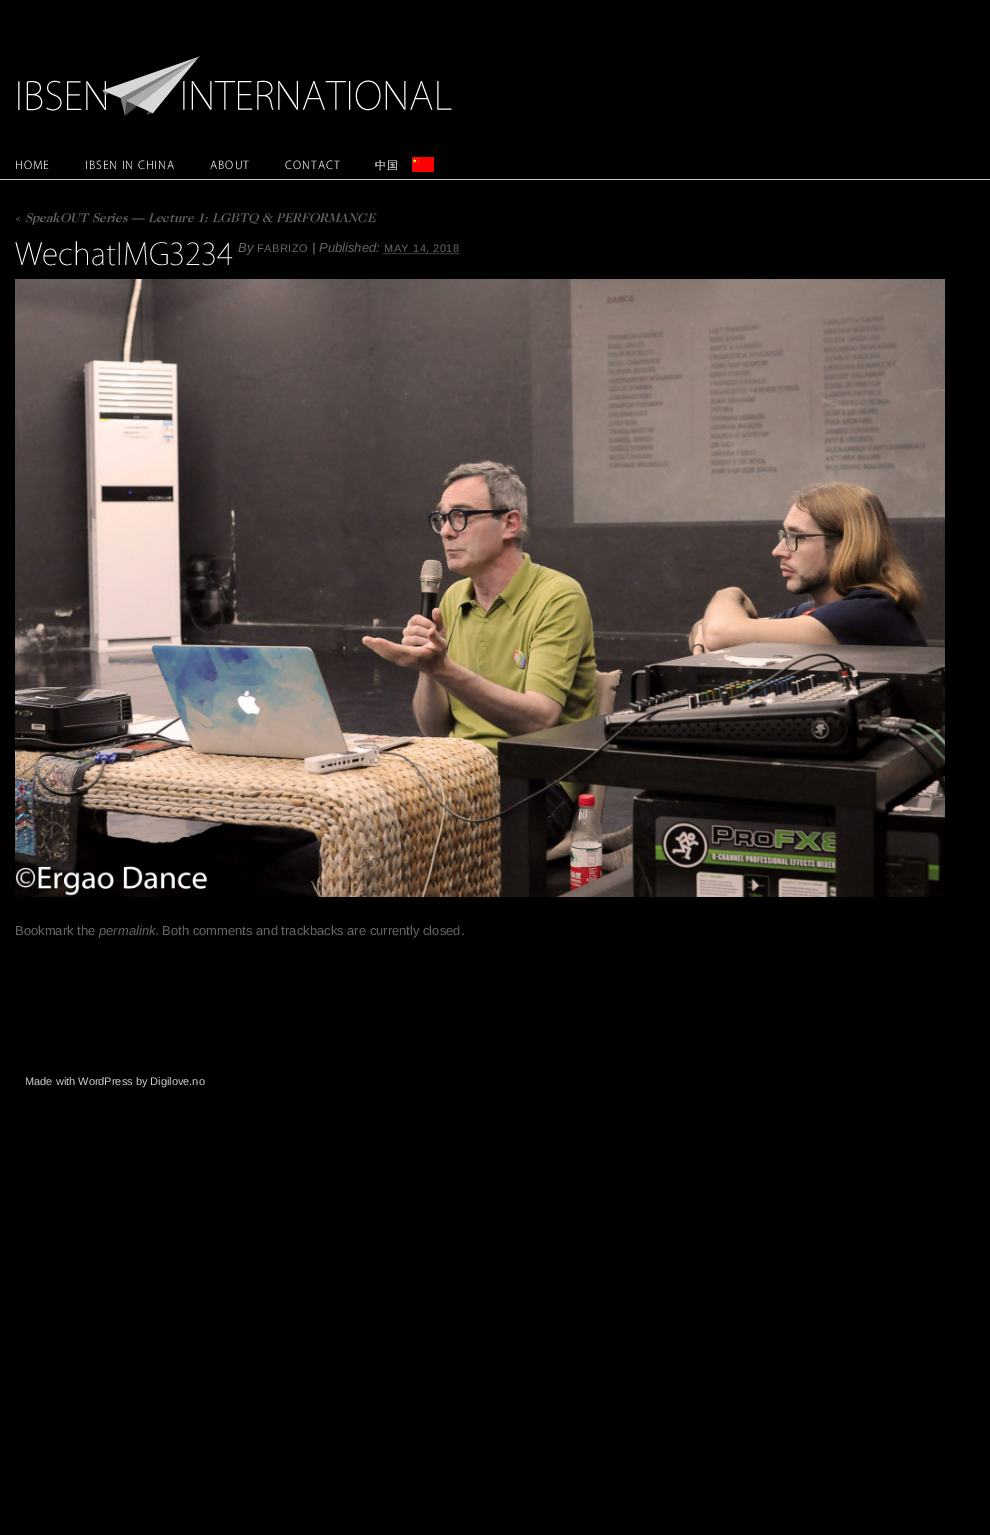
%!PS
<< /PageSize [990 1535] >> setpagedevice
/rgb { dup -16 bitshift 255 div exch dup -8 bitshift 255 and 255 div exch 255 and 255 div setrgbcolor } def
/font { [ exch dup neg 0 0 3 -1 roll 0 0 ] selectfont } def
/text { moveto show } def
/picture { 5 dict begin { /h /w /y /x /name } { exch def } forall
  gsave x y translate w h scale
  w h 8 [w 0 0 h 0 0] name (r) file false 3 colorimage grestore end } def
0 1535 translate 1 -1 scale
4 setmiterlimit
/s1 { /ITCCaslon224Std-Medium 13 font 16#666666 rgb } def
/s2 { /ITCCaslon224Std-MediumItalic 13 font 16#666666 rgb } def
/s3 { /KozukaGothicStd-ExtraLight 30 font 16#FFFFFF rgb } def
/s4 { /LiberationSans-Italic 13 font 16#666666 rgb } def
/s5 { /LiberationSans-Regular 13 font 16#666666 rgb } def
/s6 { /LiberationSans-Regular 11 font 16#CCCCCC rgb } def
16#000000 rgb
0 0 990 1535 rectfill
(pic1.raw) 18 56 434 60 picture
16#CCCCCC rgb
0 179 990 1 rectfill
/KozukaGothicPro-Light 11 font
16#FFFFFF rgb
15 169 moveto 1 0 (HOME) ashow
85 169 moveto 1 0 (IBSEN IN CHINA) ashow
210 169 moveto 1 0 (ABOUT) ashow
285 169 moveto 1 0 (CONTACT) ashow
(pic2.raw) 412 157 22 15 picture
/WenQuanYiZenHei-Medium 11 font
375 169 moveto 1 0 (中国) ashow
s1
(«) 15 222 text
s2
(SpeakOUT Series — Lecture 1: LGBTQ & PERFORMANCE) 25 222 text
s3
(WechatIMG3234) 15 265 text
s4
(By) 238 252 text
/LiberationSans-Regular 11 font
257 252 moveto 0.5 0 (FABRIZO) ashow
s4
(| Published:) 312 252 text
[1 1] 0 setdash
383.5 253.5 moveto 460 253.5 lineto stroke
/LiberationSans-Regular 11 font
384 252 moveto 0.5 0 (MAY 14, 2018) ashow
(pic3.raw) 15 279 930 618 picture
s5
(Bookmark the) 15 935 text
s4
(permalink) 99 935 text
s5
(. Both comments and trackbacks are currently closed.) 155 935 text
s6
(Made with WordPress by Digilove.no) 25 1085 text
showpage
